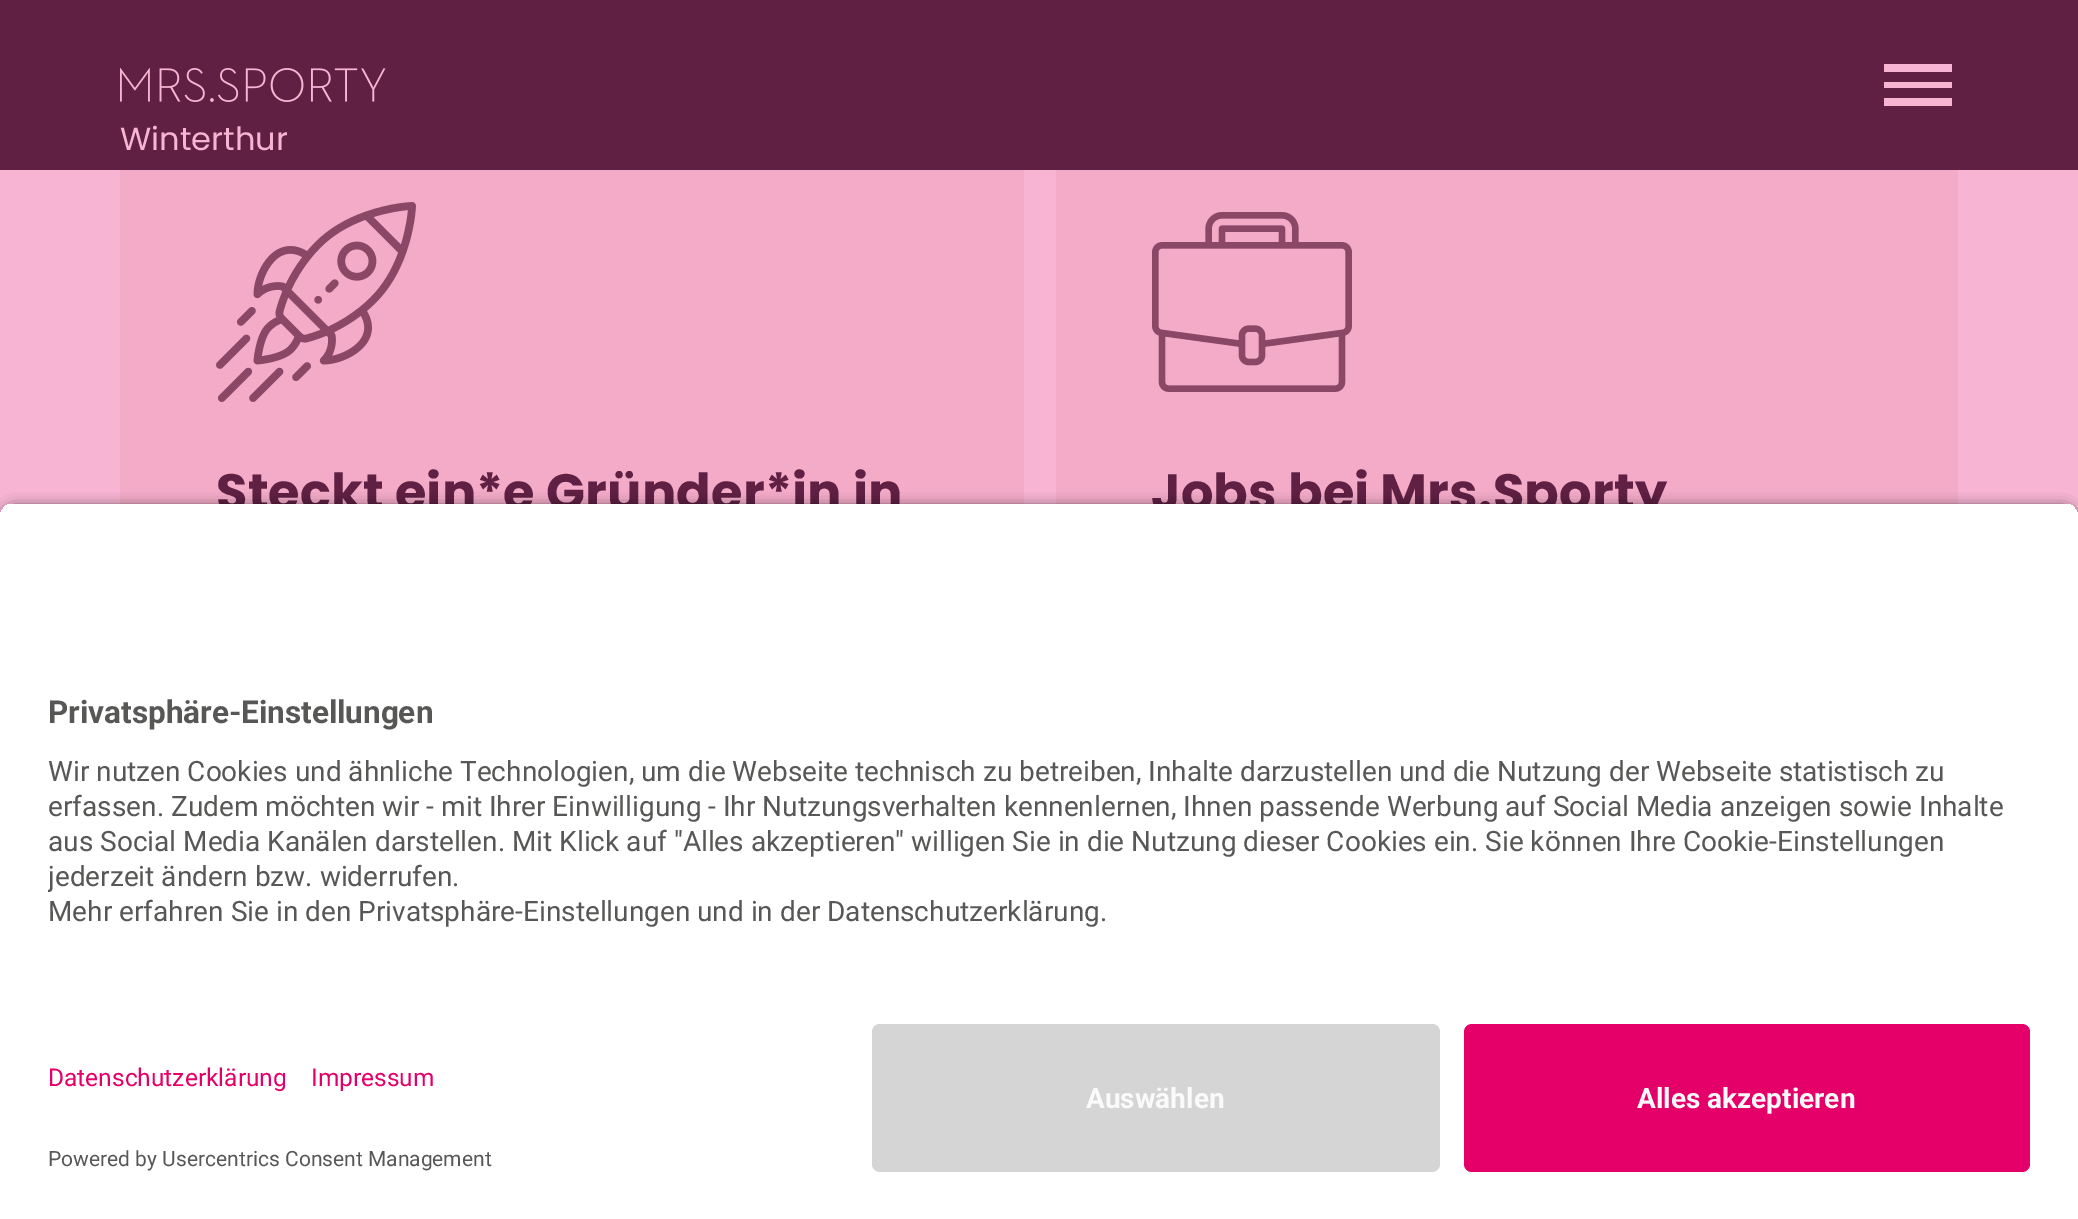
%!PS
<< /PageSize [2078 1219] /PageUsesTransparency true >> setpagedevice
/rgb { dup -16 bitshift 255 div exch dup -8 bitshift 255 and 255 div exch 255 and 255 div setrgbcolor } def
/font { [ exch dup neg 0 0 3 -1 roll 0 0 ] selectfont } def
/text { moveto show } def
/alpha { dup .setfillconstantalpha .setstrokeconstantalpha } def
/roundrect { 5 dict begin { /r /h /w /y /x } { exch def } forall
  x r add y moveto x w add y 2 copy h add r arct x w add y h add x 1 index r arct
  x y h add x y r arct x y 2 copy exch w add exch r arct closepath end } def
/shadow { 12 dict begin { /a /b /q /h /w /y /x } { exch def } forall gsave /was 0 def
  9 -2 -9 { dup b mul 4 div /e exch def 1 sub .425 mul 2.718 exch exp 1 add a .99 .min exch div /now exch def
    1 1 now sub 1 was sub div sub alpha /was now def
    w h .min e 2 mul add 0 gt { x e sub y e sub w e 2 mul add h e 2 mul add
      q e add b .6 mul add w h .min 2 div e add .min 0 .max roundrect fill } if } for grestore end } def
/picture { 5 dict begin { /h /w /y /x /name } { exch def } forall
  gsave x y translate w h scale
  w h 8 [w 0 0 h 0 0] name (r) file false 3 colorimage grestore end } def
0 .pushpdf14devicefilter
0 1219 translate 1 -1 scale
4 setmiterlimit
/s1 { /Poppins-Regular 32 font 16#F7B5D3 rgb } def
/s2 { /Roboto-Bold 31.5 font 16#575756 rgb } def
/s3 { /Roboto-Regular 28 font 16#575756 rgb } def
/s4 { /Roboto-Regular 24.5 font 16#E50069 rgb } def
/s5 { /Roboto-Regular 21 font 16#575756 rgb } def
/s6 { /Roboto-Bold 28 font 16#FAFAFA rgb } def
16#F7B5D3 rgb
0 0 2078 1219 rectfill
16#5F2043 rgb
0 0 2078 170 rectfill
16#F7B5D3 rgb
1884 98 68 8 rectfill
1884 64 68 8 rectfill
1884 82 68 6 rectfill
(pic1.raw) 120 68 266 34 picture
s1
(Winterthur) 120 150 text
16#F4ABC8 rgb
120 170 904 334 rectfill
(pic2.raw) 216 202 200 200 picture
/Poppins-Bold 51 font
16#5F2043 rgb
216 510 moveto 0.2 0 (Steckt ein*e Gründer*in in) ashow
16#F4ABC8 rgb
1056 170 902 334 rectfill
(pic3.raw) 1152 212 200 180 picture
16#5F2043 rgb
1151 510 moveto 0.2 0 (Jobs bei Mrs.Sporty) ashow
16#000000 rgb
0 508 2078 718 16 7 0.8 shadow
gsave
16 502 moveto 2062 502 lineto 2071 502 2078 509 2078 518 curveto 2078 1008 lineto 0 1008 lineto 0 518 lineto 0 509 7 502 16 502 curveto closepath clip newpath
16#FFFFFF rgb
0 504 2078 504 rectfill
grestore
s2
(Privatsphäre-Einstellungen) 48 723 text
s3
(Wir nutzen Cookies und ähnliche Technologien, um die Webseite technisch zu betreiben, Inhalte darzustellen und die Nutzung der Webseite statistisch zu) 48 781 text
(erfassen. Zudem möchten wir - mit Ihrer Einwilligung - Ihr Nutzungsverhalten kennenlernen, Ihnen passende Werbung auf Social Media anzeigen sowie Inhalte) 48 816 text
(aus Social Media Kanälen darstellen. Mit Klick auf "Alles akzeptieren" willigen Sie in die Nutzung dieser Cookies ein. Sie können Ihre Cookie-Einstellungen) 48 851 text
gsave
48 748 1982 260 rectclip
(jederzeit ändern bzw. widerrufen.) 48 886 text
grestore
(Mehr erfahren Sie in den Privatsphäre-Einstellungen und in der Datenschutzerklärung.) 48 921 text
16#FFFFFF rgb
0 1008 2078 211 rectfill
s4
(Datenschutzerklärung) 48 1086 text
(Impressum) 311 1086 text
s5
(Powered by Usercentrics Consent Management) 48 1166 text
16#D5D5D5 rgb
872 1024 568 148 8 roundrect fill
s6
(Auswählen) 1086 1108 text
16#E50069 rgb
1464 1024 566 148 8 roundrect fill
s6
(Alles akzeptieren) 1637 1108 text
.poppdf14devicefilter showpage
